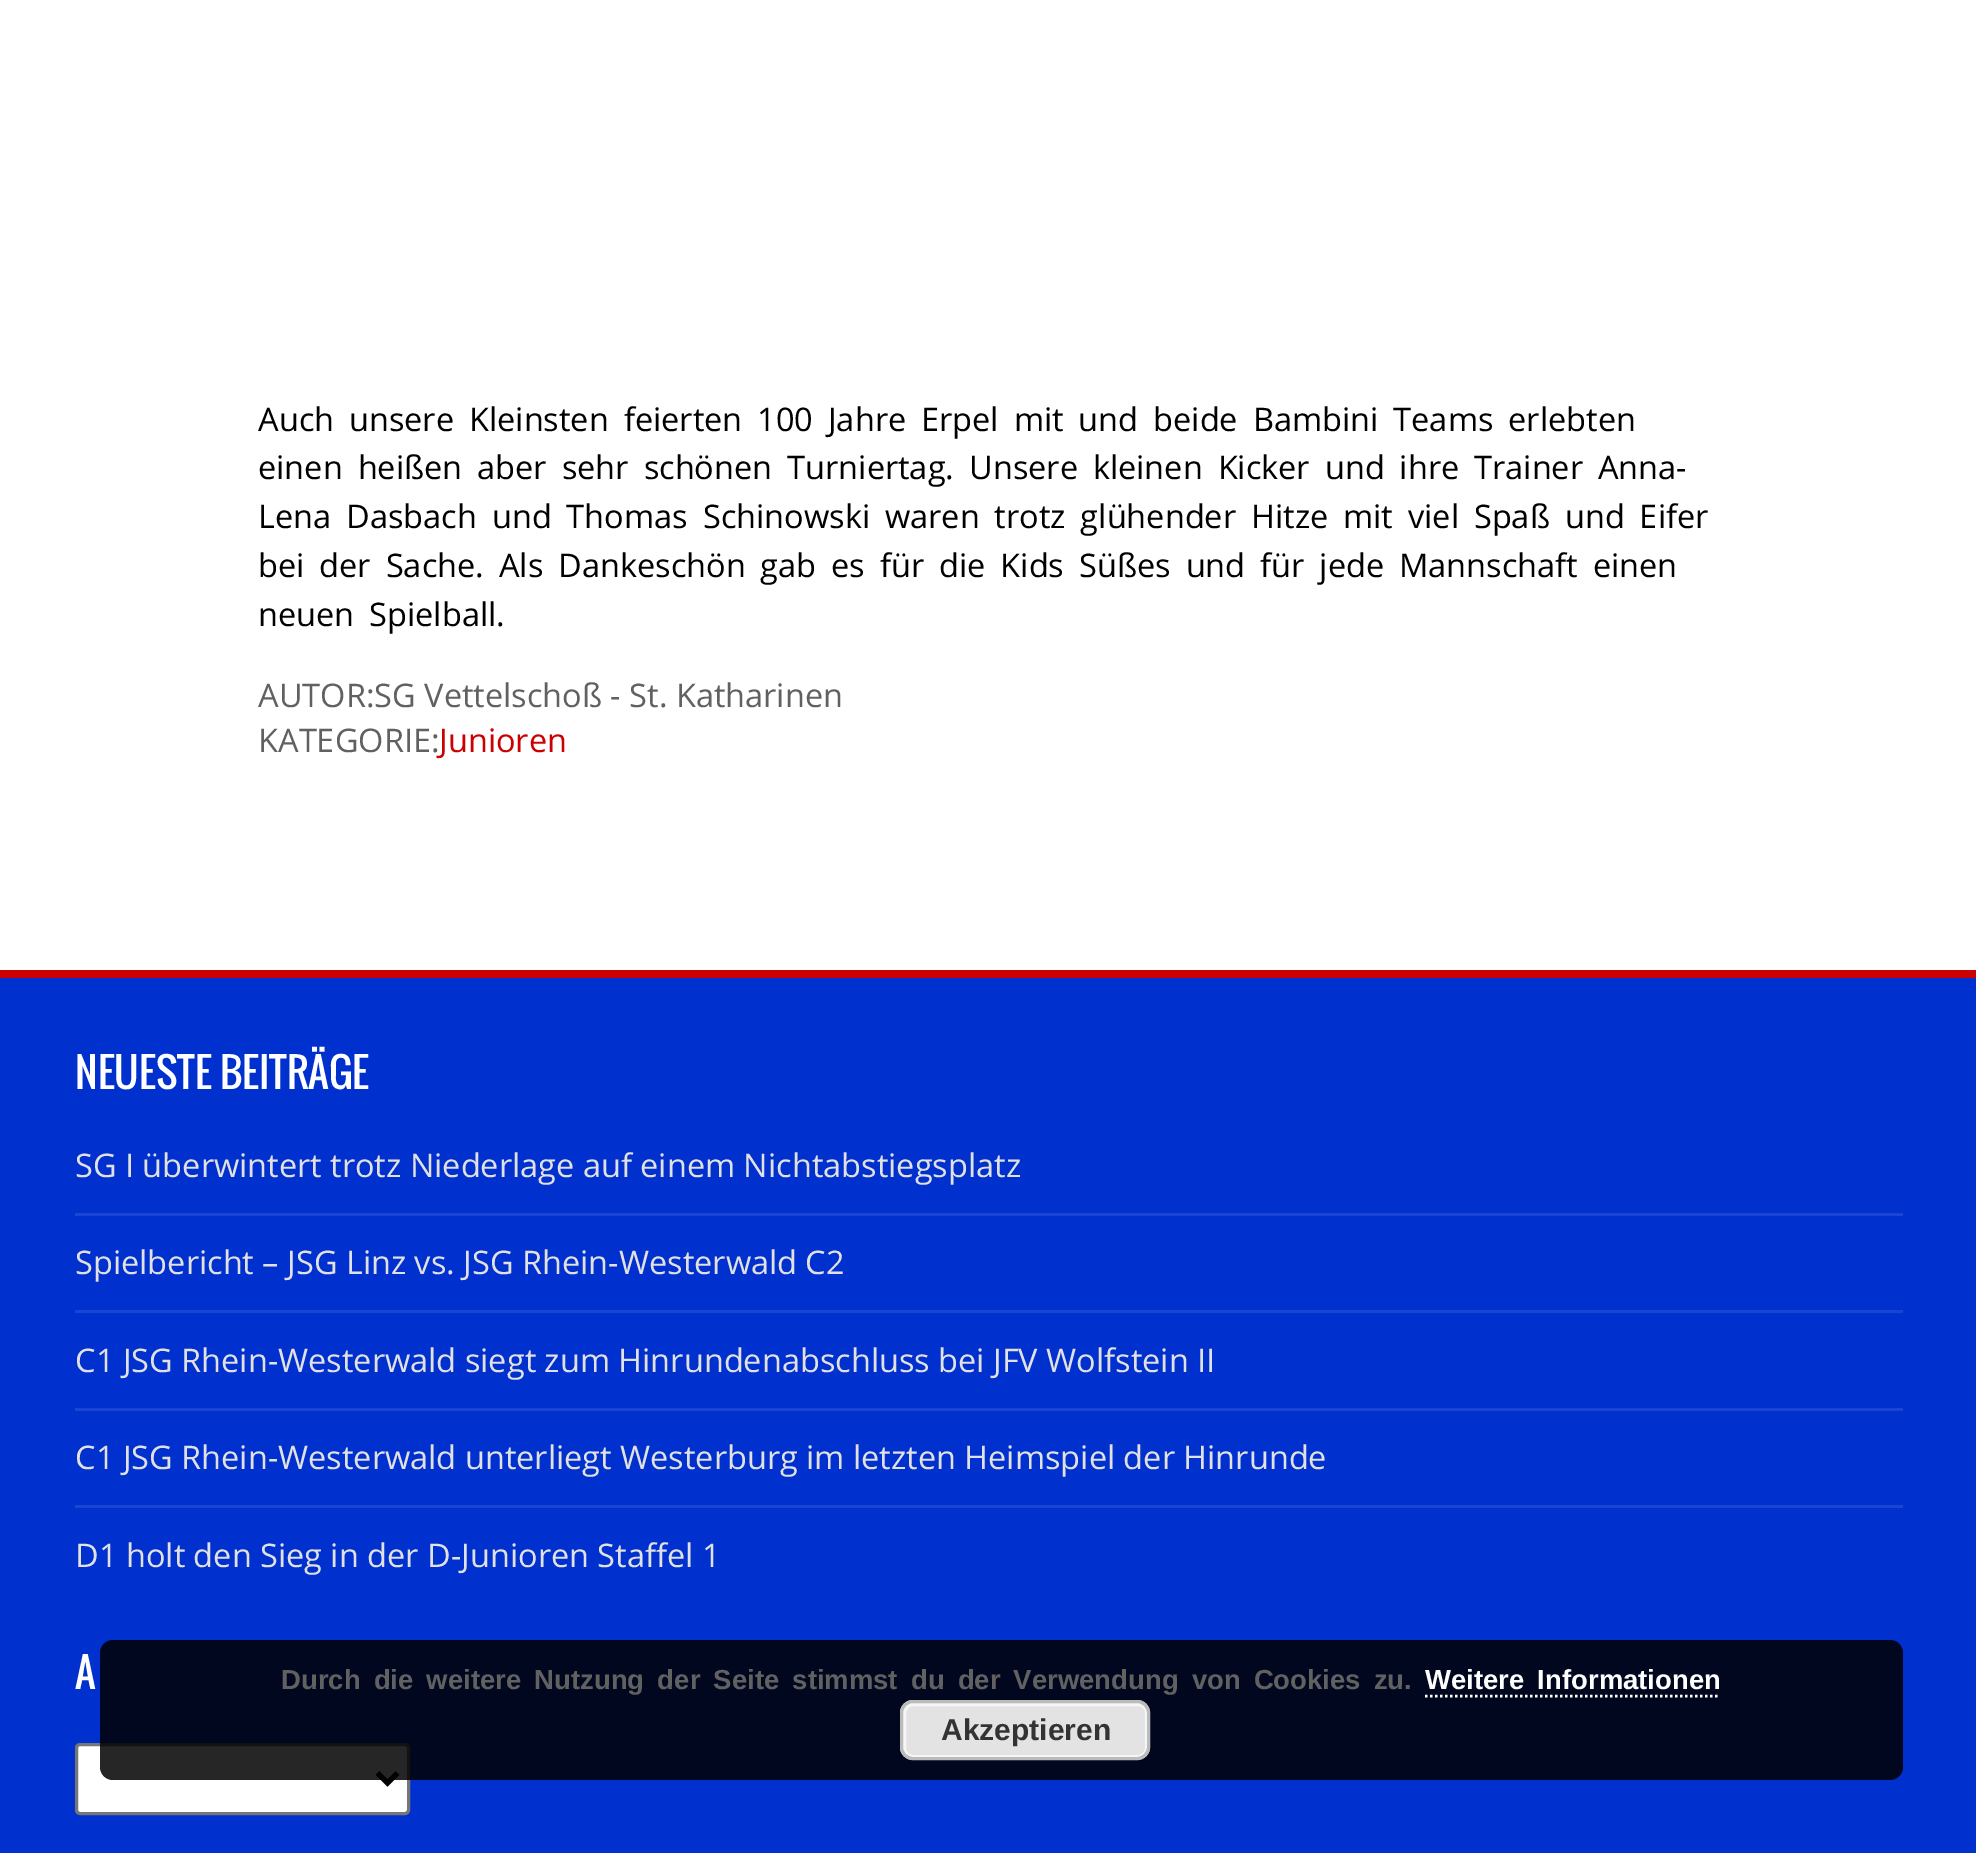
%!PS
<< /PageSize [1976 1853] /PageUsesTransparency true >> setpagedevice
/rgb { dup -16 bitshift 255 div exch dup -8 bitshift 255 and 255 div exch 255 and 255 div setrgbcolor } def
/font { [ exch dup neg 0 0 3 -1 roll 0 0 ] selectfont } def
/text { moveto show } def
/alpha { dup .setfillconstantalpha .setstrokeconstantalpha } def
/roundrect { 5 dict begin { /r /h /w /y /x } { exch def } forall
  x r add y moveto x w add y 2 copy h add r arct x w add y h add x 1 index r arct
  x y h add x y r arct x y 2 copy exch w add exch r arct closepath end } def
0 .pushpdf14devicefilter
0 1853 translate 1 -1 scale
4 setmiterlimit
/s1 { /OpenSans-Regular 32.5 font 16#616161 rgb } def
/s2 { /OpenSans-Regular 32.5 font 16#CC0000 rgb } def
/s3 { /Oswald-Regular 40 font 16#FFFFFF rgb } def
/s4 { /OpenSans-Regular 32.5 font 16#E1E1E1 rgb } def
/s5 { /LiberationSans-Bold 30 font 16#333333 rgb } def
16#FFFFFF rgb
0 0 1976 1853 rectfill
/OpenSans-Regular 32.5 font
16#000000 rgb
258 431 moveto 6.5 0 32 (Auch unsere Kleinsten feierten 100 Jahre Erpel mit und beide Bambini Teams erlebten) widthshow
258 479 moveto 6.5 0 32 (einen heißen aber sehr schönen Turniertag. Unsere kleinen Kicker und ihre Trainer Anna-) widthshow
258 528 moveto 6.5 0 32 (Lena Dasbach und Thomas Schinowski waren trotz glühender Hitze mit viel Spaß und Eifer) widthshow
258 577 moveto 6.5 0 32 (bei der Sache. Als Dankeschön gab es für die Kids Süßes und für jede Mannschaft einen) widthshow
258 626 moveto 6.5 0 32 (neuen Spielball.) widthshow
s1
(AUTOR:SG Vettelschoß - St. Katharinen) 258 707 text
(KATEGORIE:) 258 752 text
s2
(Junioren) 439 752 text
16#0030CE rgb
0 978 1976 875 rectfill
16#CC0000 rgb
0 970 1976 8 rectfill
s3
(NEUESTE BEITRÄGE) 75 1089 text
16#1A45D3 rgb
75 1213 1828 3 rectfill
s4
(SG I überwintert trotz Niederlage auf einem Nichtabstiegsplatz) 75 1177 text
16#1A45D3 rgb
75 1310 1828 3 rectfill
s4
(Spielbericht – JSG Linz vs. JSG Rhein-Westerwald C2) 75 1274 text
16#1A45D3 rgb
75 1408 1828 3 rectfill
s4
(C1 JSG Rhein-Westerwald siegt zum Hinrundenabschluss bei JFV Wolfstein II) 75 1372 text
16#1A45D3 rgb
75 1505 1828 3 rectfill
s4
(C1 JSG Rhein-Westerwald unterliegt Westerburg im letzten Heimspiel der Hinrunde) 75 1469 text
(D1 holt den Sieg in der D-Junioren Staffel 1) 75 1567 text
s3
(A) 75 1689 text
76.5 1744.5 332 69 3.5 roundrect gsave fill grestore
16#767676 rgb
3 setlinewidth
stroke
16#000000 rgb
5 setlinewidth
377.5 1773 moveto 387.5 1783 lineto 397.5 1773 lineto stroke
0.85 alpha
100 1640 1803 140 13 roundrect fill
/LiberationSans-Bold 27.5 font
1 alpha
16#616161 rgb
281 1689 moveto 5.5 0 32 (Durch die weitere Nutzung der Seite stimmst du der Verwendung von Cookies zu.) widthshow
16#FFFFFF rgb
1425 1689 moveto 5.5 0 32 (Weitere Informationen) widthshow
2.5 setlinewidth
[2.5 2.5] 0 setdash
1425 1696 moveto 1720 1696 lineto stroke
16#E3E3E3 rgb
900 1700 250 60 13 roundrect fill
16#F6F6F6 rgb
3 setlinewidth
[] 0 setdash
904.5 1704.5 242 52 8.5 roundrect stroke
16#BBBBBB rgb
901.5 1701.5 247 57 11.5 roundrect stroke
s5
(Akzeptieren) 941 1740 text
.poppdf14devicefilter showpage
